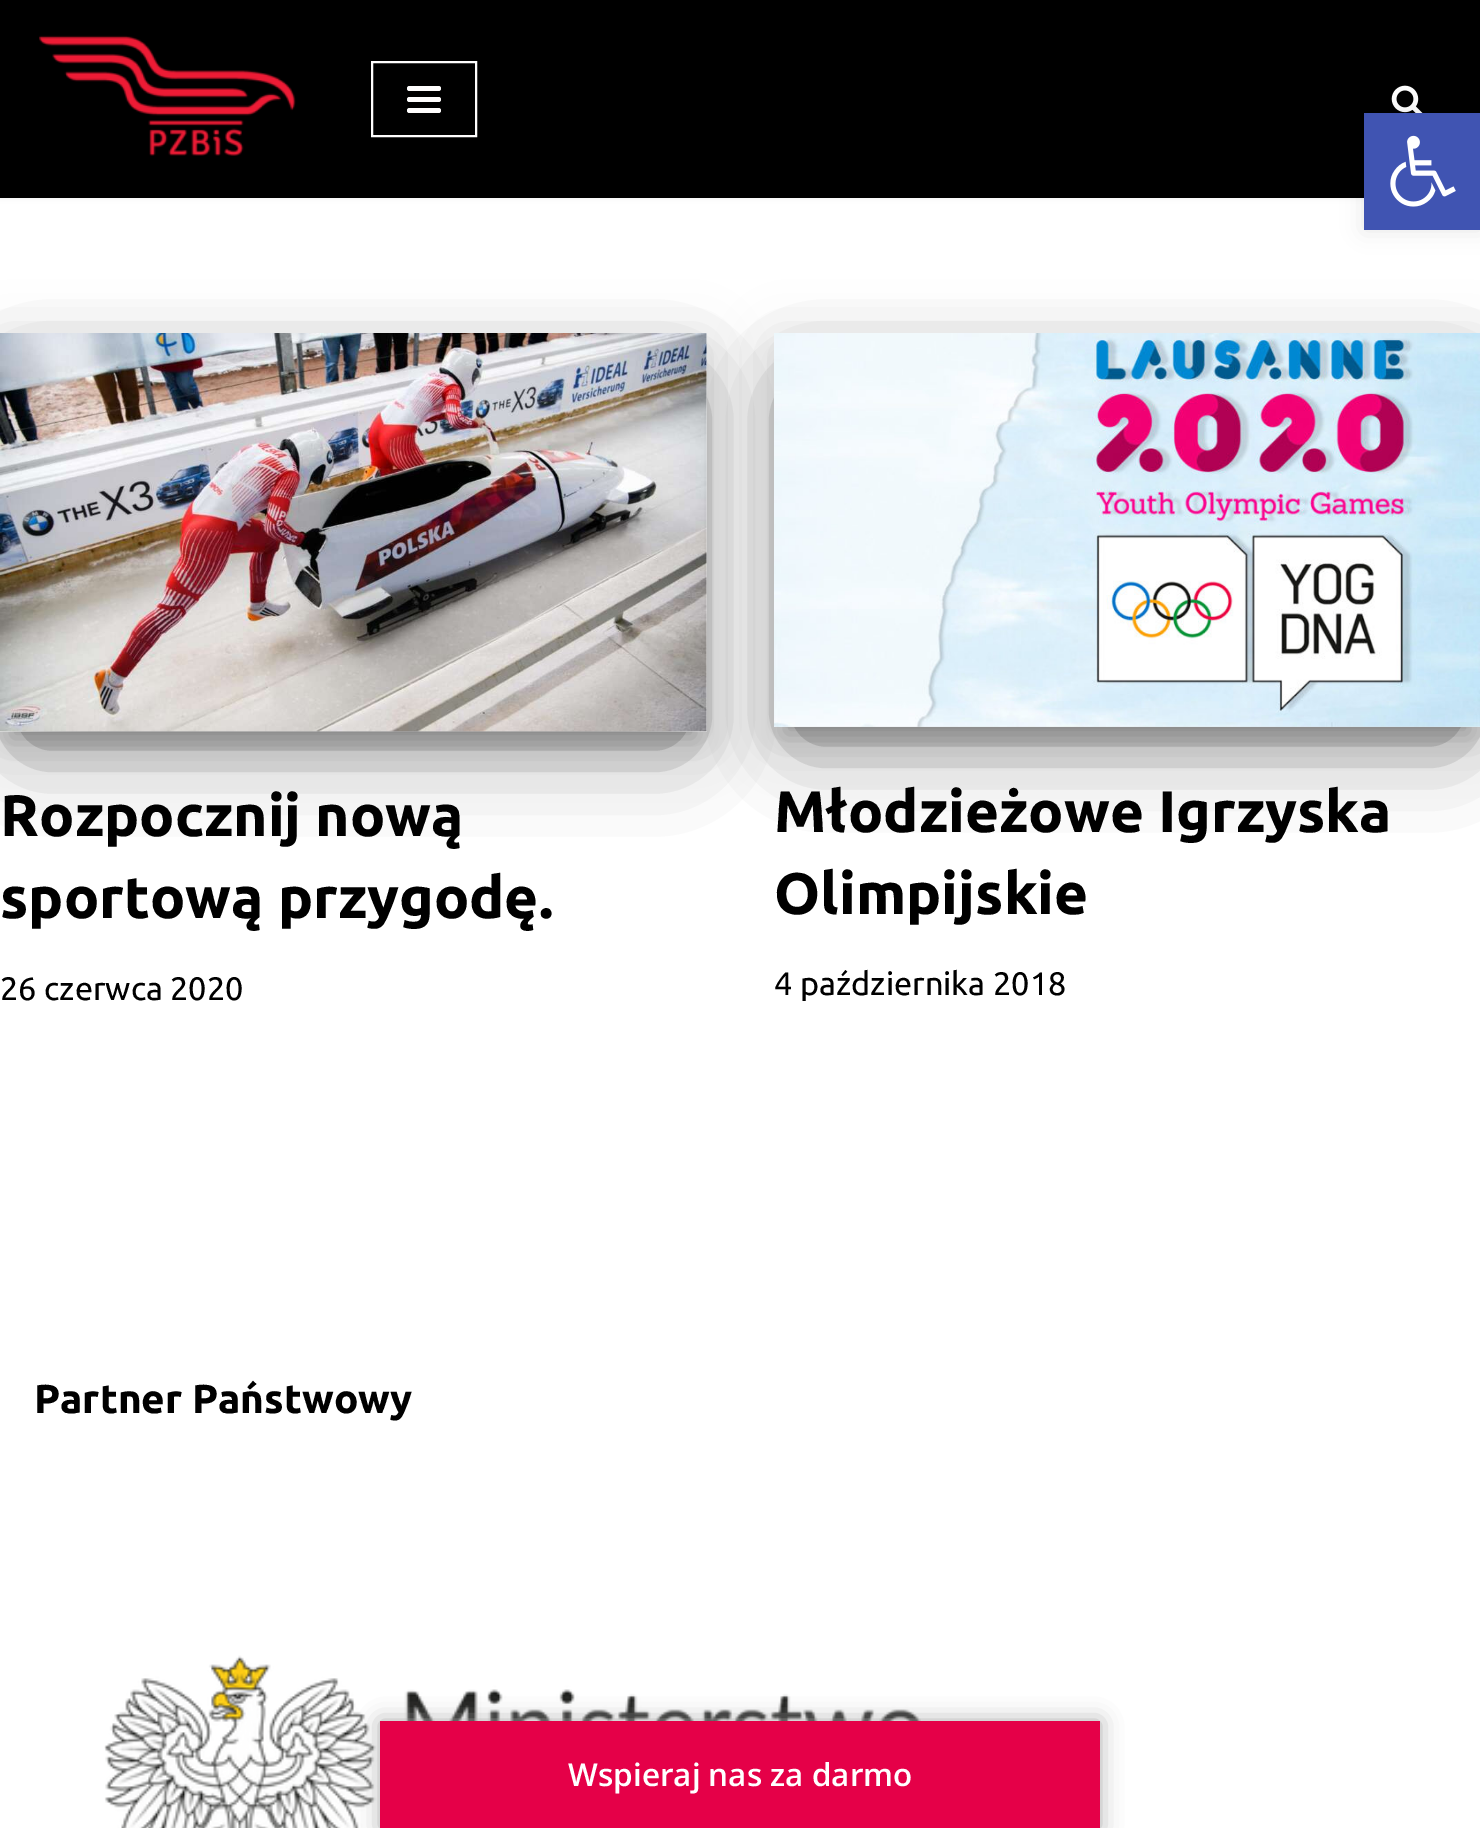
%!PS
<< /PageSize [1480 1828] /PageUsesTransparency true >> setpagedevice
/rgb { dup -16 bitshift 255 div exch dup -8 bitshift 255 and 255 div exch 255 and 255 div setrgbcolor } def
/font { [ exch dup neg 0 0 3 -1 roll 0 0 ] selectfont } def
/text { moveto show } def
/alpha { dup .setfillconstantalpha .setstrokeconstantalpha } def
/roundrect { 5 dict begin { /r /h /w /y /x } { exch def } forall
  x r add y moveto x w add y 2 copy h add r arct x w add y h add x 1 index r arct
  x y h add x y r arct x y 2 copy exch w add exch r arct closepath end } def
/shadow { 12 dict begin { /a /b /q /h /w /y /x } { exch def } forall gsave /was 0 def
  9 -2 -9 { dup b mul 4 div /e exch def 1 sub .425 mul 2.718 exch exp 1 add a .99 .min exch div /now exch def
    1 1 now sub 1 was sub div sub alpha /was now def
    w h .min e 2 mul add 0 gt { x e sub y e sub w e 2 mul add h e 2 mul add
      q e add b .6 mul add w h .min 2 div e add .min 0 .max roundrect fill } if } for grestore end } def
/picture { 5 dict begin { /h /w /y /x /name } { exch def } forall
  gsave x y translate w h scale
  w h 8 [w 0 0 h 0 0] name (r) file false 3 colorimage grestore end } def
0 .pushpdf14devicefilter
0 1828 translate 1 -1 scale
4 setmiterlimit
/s1 { /Ubuntu-Bold 58.5 font 16#000000 rgb } def
/s2 { /Ubuntu-Regular 32.5 font 16#000000 rgb } def
/s3 { /Ubuntu-Bold 40.5 font 16#000000 rgb } def
/s4 { /OpenSans-SemiBold 31.5 font 16#FFFFFF rgb } def
16#FFFFFF rgb
0 0 1480 1828 rectfill
16#000000 rgb
0 -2 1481 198 0 3.5 0.1 shadow
0 0 1480 198 rectfill
(pic3.raw) 1391 85 32 28 picture
1364 113 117 117 0 11 0.1 shadow
16#4054B2 rgb
1364 113 116 117 rectfill
(pic1.raw) 1390 135 66 72 picture
(pic2.raw) 39 35 257 121 picture
16#FFFEFE rgb
2 setlinewidth
372 62 104 74 rectstroke
407 97 34 5 2.5 roundrect fill
407 86 34 5 2.5 roundrect fill
407 108 34 5 2.5 roundrect fill
16#000000 rgb
11 362 684 376 0 11 0.2 shadow
0 342 707 398 0 28 0.12 shadow
27 396 653 344 0 43 0.56 shadow
(pic4.raw) 0 333 707 399 picture
s1
(Rozpocznij nową) 0 836 text
(sportową przygodę.) 0 918 text
s2
(26 czerwca 2020) 0 1000 text
785 362 684 372 0 11 0.2 shadow
774 342 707 394 0 28 0.12 shadow
801 396 653 340 0 43 0.56 shadow
(pic5.raw) 774 333 706 394 picture
s1
(Młodzieżowe Igrzyska) 774 832 text
(Olimpijskie) 774 914 text
s2
(4 października 2018) 774 995 text
s3
(Partner Państwowy) 34 1413 text
(pic6.raw) 104 1655 817 173 picture
16#AAAAAA rgb
380 1721 720 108 0 11 1 shadow
16#E50048 rgb
380 1721 720 107 rectfill
s4
(Wspieraj nas za darmo) 568 1786 text
.poppdf14devicefilter showpage
